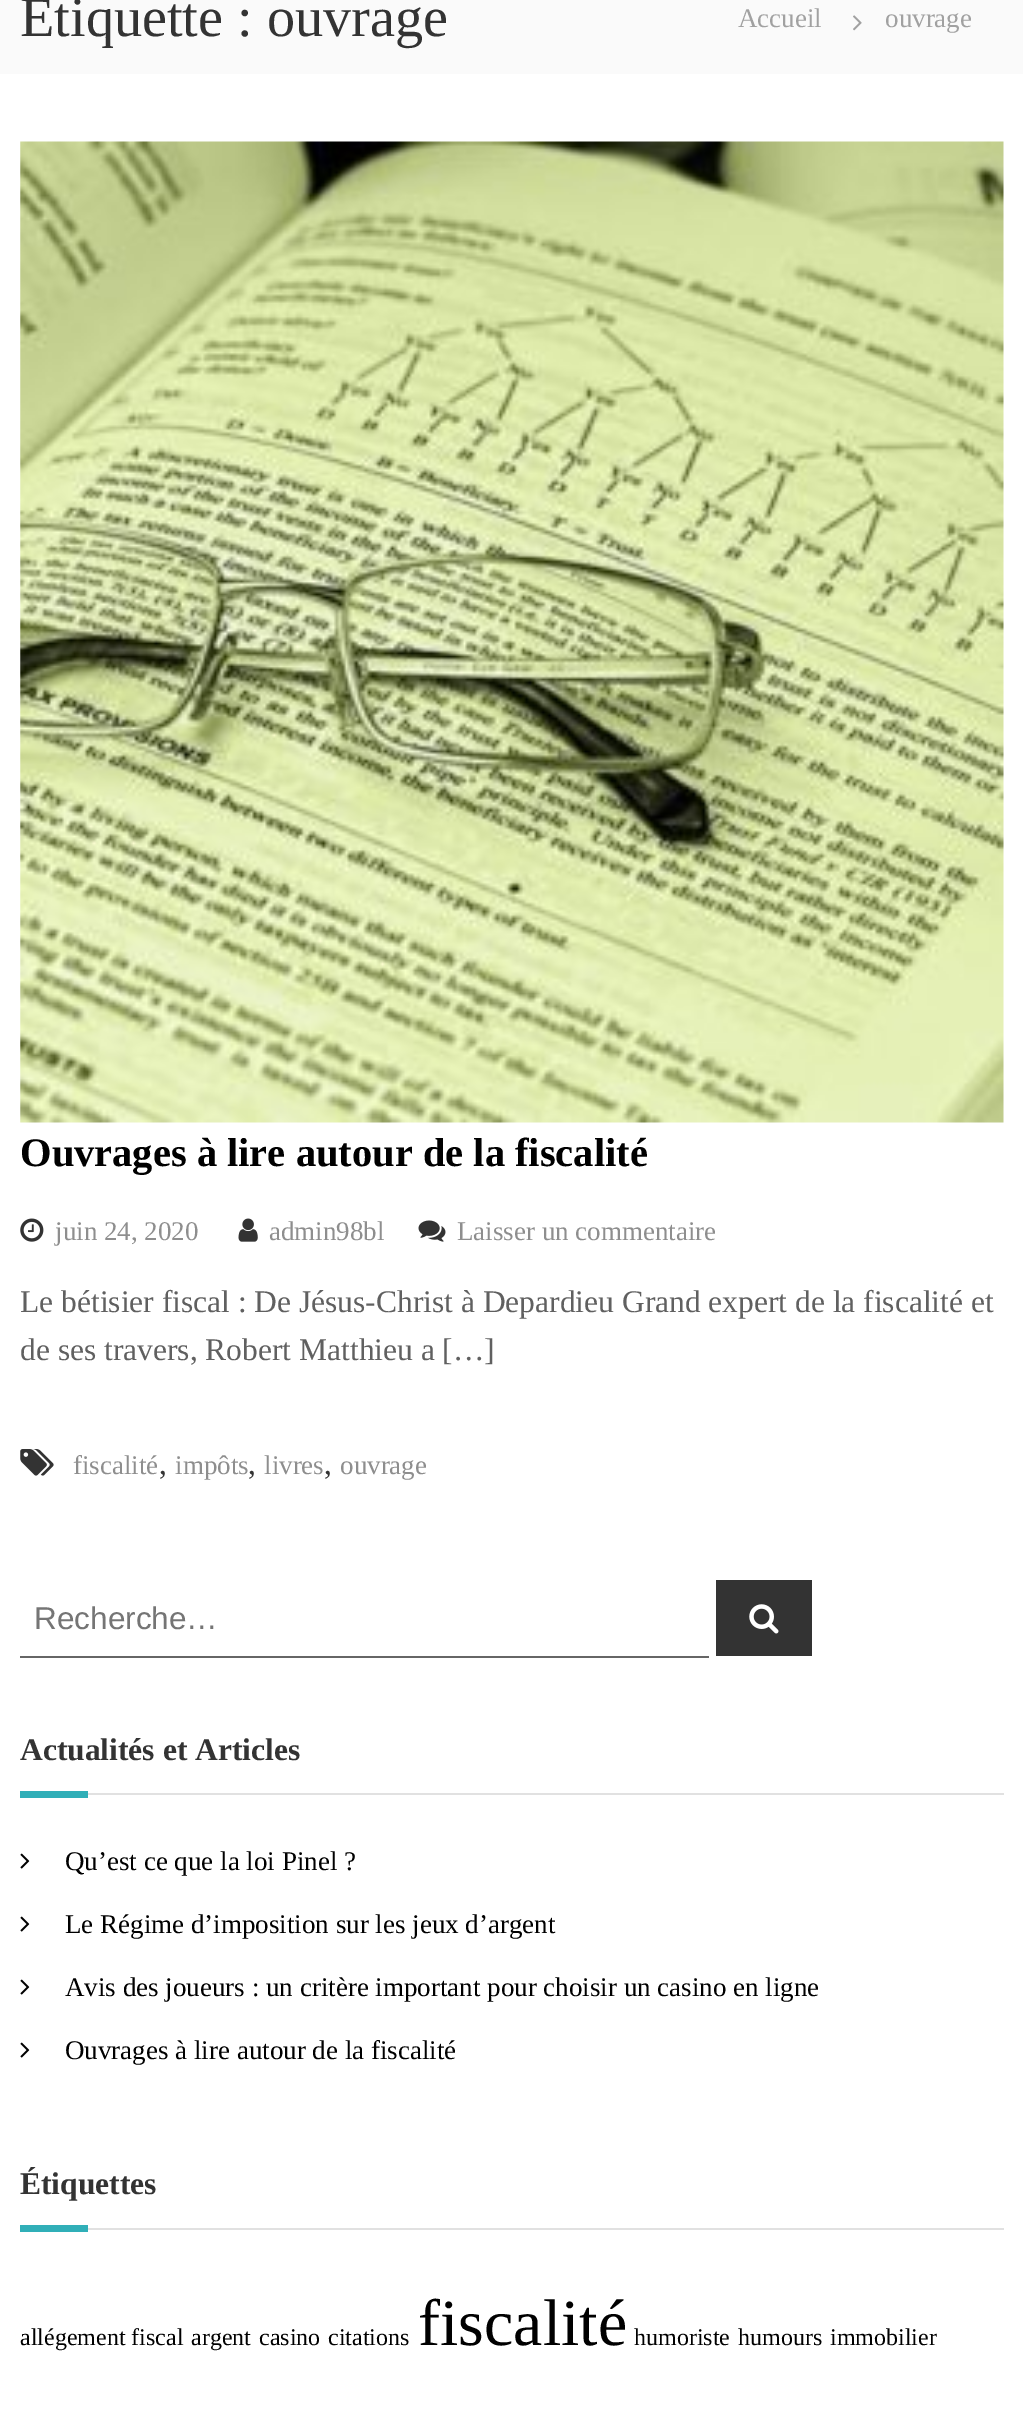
%!PS
<< /PageSize [1023 2432] >> setpagedevice
/rgb { dup -16 bitshift 255 div exch dup -8 bitshift 255 and 255 div exch 255 and 255 div setrgbcolor } def
/font { [ exch dup neg 0 0 3 -1 roll 0 0 ] selectfont } def
/text { moveto show } def
/picture { 5 dict begin { /h /w /y /x /name } { exch def } forall
  gsave x y translate w h scale
  w h 8 [w 0 0 h 0 0] name (r) file false 3 colorimage grestore end } def
0 2432 translate 1 -1 scale
4 setmiterlimit
/s1 { /LiberationSerif-Regular 56.25 font 16#333333 rgb } def
/s2 { /LiberationSerif-Regular 27 font 16#A1A1A1 rgb } def
/s3 { /LiberationSerif-Bold 40.5 font 16#000000 rgb } def
/s4 { /LiberationSerif-Regular 27 font 16#8E8E8E rgb } def
/s5 { /LiberationSerif-Regular 31.5 font 16#606060 rgb } def
/s6 { /LiberationSerif-Regular 31.5 font 16#333333 rgb } def
/s7 { /LiberationSans-Regular 31.5 font 16#757575 rgb } def
/s8 { /LiberationSerif-Bold 31.5 font 16#333333 rgb } def
/s9 { /LiberationSerif-Regular 27 font 16#000000 rgb } def
/s10 { /LiberationSerif-Regular 24 font 16#000000 rgb } def
/s11 { /LiberationSerif-Regular 66 font 16#000000 rgb } def
16#FFFFFF rgb
0 0 1023 2432 rectfill
16#FAFAFA rgb
0 0 1023 74 rectfill
s1
(Étiquette : ouvrage) 20 36 text
s2
(Accueil) 738 27 text
(pic1.raw) 853 15 9 16 picture
(ouvrage) 885 27 text
(pic2.raw) 20 141 984 982 picture
s3
(Ouvrages à lire autour de la fiscalité) 20 1166 text
(pic3.raw) 20 1218 24 24 picture
s4
(juin 24, 2020) 55 1240 text
(pic4.raw) 238 1218 20 24 picture
(admin98bl) 269 1240 text
(pic5.raw) 418 1220 28 22 picture
(Laisser un commentaire) 457 1240 text
s5
(Le bétisier fiscal : De Jésus-Christ à Depardieu Grand expert de la fiscalité et) 20 1312 text
(de ses travers, Robert Matthieu a […]) 20 1360 text
(pic6.raw) 20 1449 34 27 picture
s4
(fiscalité) 73 1474 text
s6
(,) 159 1474 text
s4
(impôts) 175 1474 text
s6
(,) 248 1474 text
s4
(livres) 264 1474 text
s6
(,) 324 1474 text
s4
(ouvrage) 340 1474 text
16#666666 rgb
20 1656 689 2 rectfill
s7
(Recherche…) 34 1629 text
16#333333 rgb
716 1580 96 76 rectfill
(pic7.raw) 749 1604 30 30 picture
s8
(Actualités et Articles) 20 1760 text
16#30AFB8 rgb
20 1791 68 7 rectfill
16#E1E1E1 rgb
88 1793 916 2 rectfill
(pic8.raw) 20 1853 10 16 picture
s9
(Qu’est ce que la loi Pinel ?) 65 1870 text
(pic8.raw) 20 1916 10 16 picture
(Le Régime d’imposition sur les jeux d’argent) 65 1933 text
(pic8.raw) 20 1979 10 16 picture
(Avis des joueurs : un critère important pour choisir un casino en ligne) 65 1996 text
(pic8.raw) 20 2042 10 16 picture
(Ouvrages à lire autour de la fiscalité) 65 2059 text
s8
(Étiquettes) 20 2194 text
16#30AFB8 rgb
20 2225 68 7 rectfill
16#E1E1E1 rgb
88 2228 916 2 rectfill
s10
(allégement fiscal) 20 2345 text
(argent) 191 2345 text
(casino) 259 2345 text
(citations) 328 2345 text
s11
(fiscalité) 418 2345 text
s10
(humoriste) 634 2345 text
(humours) 738 2345 text
(immobilier) 830 2345 text
showpage
